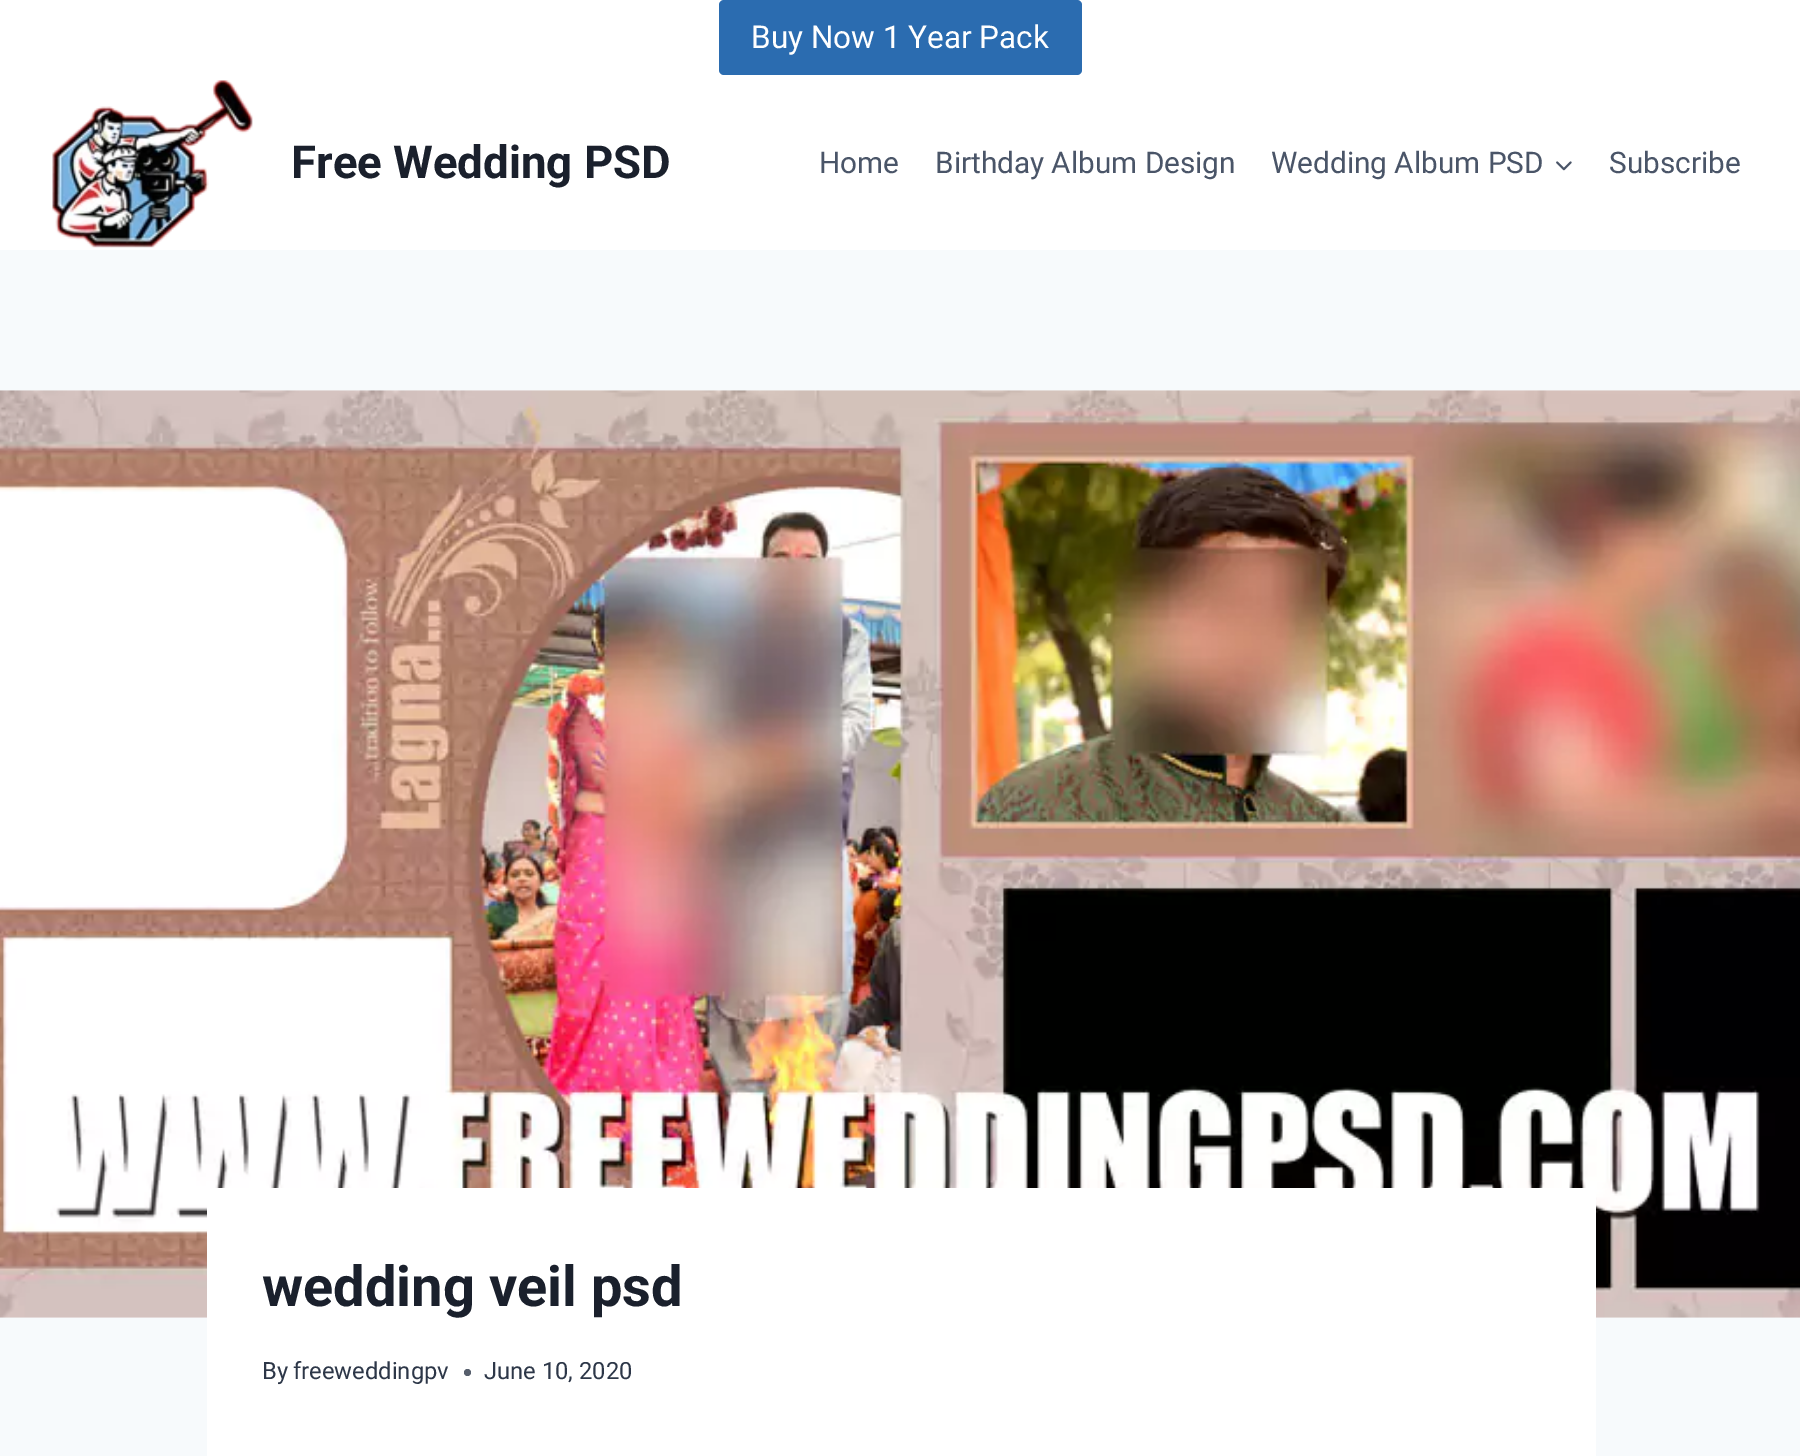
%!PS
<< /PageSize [1800 1456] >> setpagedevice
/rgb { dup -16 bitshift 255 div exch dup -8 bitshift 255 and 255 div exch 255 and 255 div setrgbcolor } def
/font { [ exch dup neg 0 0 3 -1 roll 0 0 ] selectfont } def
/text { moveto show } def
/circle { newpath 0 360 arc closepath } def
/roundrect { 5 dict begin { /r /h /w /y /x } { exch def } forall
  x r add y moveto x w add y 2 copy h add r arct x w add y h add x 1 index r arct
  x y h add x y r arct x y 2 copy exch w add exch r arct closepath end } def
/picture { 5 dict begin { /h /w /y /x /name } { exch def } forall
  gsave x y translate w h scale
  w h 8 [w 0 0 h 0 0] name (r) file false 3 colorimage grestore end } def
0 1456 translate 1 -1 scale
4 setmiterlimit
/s1 { /Roboto-Regular 31.5 font 16#FFFFFF rgb } def
/s2 { /Roboto-Bold 45.5 font 16#1A202C rgb } def
/s3 { /Roboto-Regular 29.75 font 16#4A5568 rgb } def
/s4 { /Roboto-Bold 56 font 16#1A202C rgb } def
/s5 { /Roboto-Regular 23.75 font 16#2D3748 rgb } def
16#F7FAFC rgb
0 0 1800 1456 rectfill
16#FFFFFF rgb
0 0 1800 250 rectfill
16#2B6CB0 rgb
719 0 363 75 5 roundrect fill
s1
(Buy Now 1 Year Pack) 751 48 text
(pic1.raw) 52 80 201 168 picture
s2
(Free Wedding PSD) 291 178 text
s3
(Home) 819 173 text
(Birthday Album Design) 935 173 text
(Wedding Album PSD) 1271 173 text
(pic2.raw) 1556 161 16 10 picture
(Subscribe) 1609 173 text
(pic3.raw) 0 390 1800 928 picture
16#FFFFFF rgb
207 1188 1389 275 7 roundrect fill
s4
(wedding veil psd) 262 1306 text
s5
(By) 262 1379 text
(freeweddingpv) 293 1379 text
16#575F6D rgb
467.5 1372.5 3.5 circle fill
s5
(June 10, 2020) 484 1379 text
showpage
